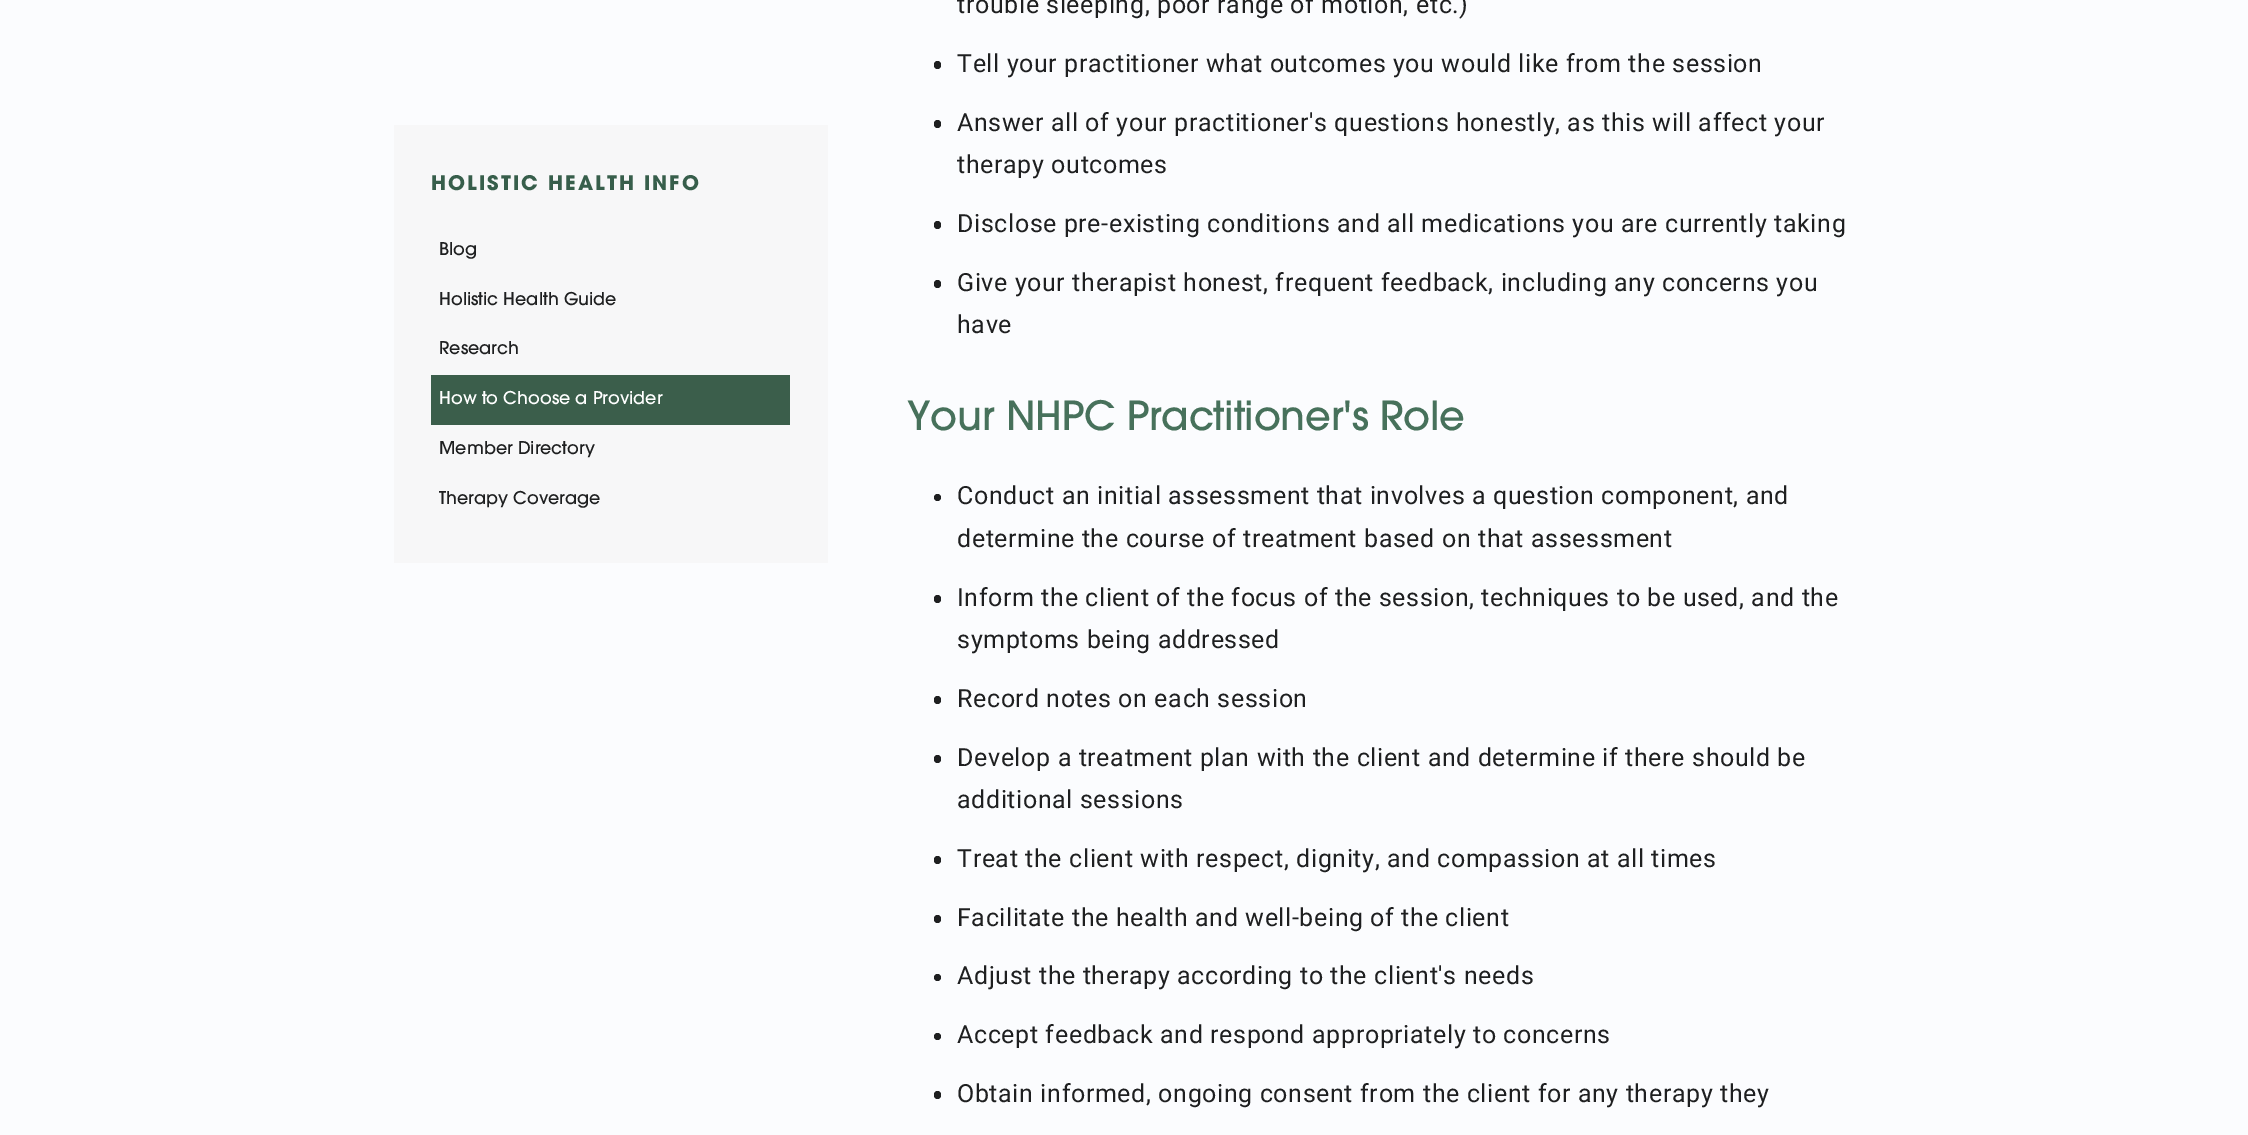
%!PS
<< /PageSize [2248 1135] >> setpagedevice
/rgb { dup -16 bitshift 255 div exch dup -8 bitshift 255 and 255 div exch 255 and 255 div setrgbcolor } def
/font { [ exch dup neg 0 0 3 -1 roll 0 0 ] selectfont } def
/text { moveto show } def
/circle { newpath 0 360 arc closepath } def
/roundrect { 5 dict begin { /r /h /w /y /x } { exch def } forall
  x r add y moveto x w add y 2 copy h add r arct x w add y h add x 1 index r arct
  x y h add x y r arct x y 2 copy exch w add exch r arct closepath end } def
0 1135 translate 1 -1 scale
4 setmiterlimit
/s1 { /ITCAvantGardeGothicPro-Medium 17.5 font 16#1E1F20 rgb } def
/s2 { /ITCAvantGardeGothicPro-Medium 17.5 font 16#FFFFFF rgb } def
16#FBFCFE rgb
0 0 2248 1135 rectfill
16#F7F7F8 rgb
394 125 434 438 rectfill
/ITCAvantGardeGothicPro-Bold 20 font
16#375E4B rgb
431 190 moveto 2 0 (HOLISTIC HEALTH INFO) ashow
s1
(Blog) 439 255 text
(Holistic Health Guide) 439 305 text
(Research) 439 354 text
16#3B5E4B rgb
431 375 359 50 rectfill
s2
(How to Choose a Provider) 439 404 text
s1
(Member Directory) 439 454 text
(Therapy Coverage) 439 504 text
/Roboto-Regular 25 font
957 13 moveto 0.62 0 (trouble sleeping, poor range of motion, etc.\)) ashow
934 61 7 8 3.5 roundrect fill
957 72 moveto 0.62 0 (Tell your practitioner what outcomes you would like from the session) ashow
934 120 7 8 3.5 roundrect fill
957 131 moveto 0.62 0 (Answer all of your practitioner's questions honestly, as this will affect your) ashow
957 173 moveto 0.62 0 (therapy outcomes) ashow
934 221 7 8 3.5 roundrect fill
957 232 moveto 0.62 0 (Disclose pre-existing conditions and all medications you are currently taking) ashow
934 280 7 8 3.5 roundrect fill
957 291 moveto 0.62 0 (Give your therapist honest, frequent feedback, including any concerns you) ashow
957 333 moveto 0.62 0 (have) ashow
/ITCAvantGardeGothicPro-Medium 40 font
16#47715B rgb
907 430 moveto -0.25 0 (Your NHPC Practitioner's Role) ashow
16#1E1F20 rgb
937.5 497.5 3.5 circle fill
/Roboto-Regular 25 font
957 504 moveto 0.62 0 (Conduct an initial assessment that involves a question component, and) ashow
957 547 moveto 0.62 0 (determine the course of treatment based on that assessment) ashow
934 595 7 8 3.5 roundrect fill
957 606 moveto 0.62 0 (Inform the client of the focus of the session, techniques to be used, and the) ashow
957 648 moveto 0.62 0 (symptoms being addressed) ashow
934 696 7 8 3.5 roundrect fill
957 707 moveto 0.62 0 (Record notes on each session) ashow
934 755 7 8 3.5 roundrect fill
957 766 moveto 0.62 0 (Develop a treatment plan with the client and determine if there should be) ashow
957 808 moveto 0.62 0 (additional sessions) ashow
934 856 7 8 3.5 roundrect fill
957 867 moveto 0.62 0 (Treat the client with respect, dignity, and compassion at all times) ashow
934 915 7 8 3.5 roundrect fill
957 926 moveto 0.62 0 (Facilitate the health and well-being of the client) ashow
937.5 977.5 3.5 circle fill
957 984 moveto 0.62 0 (Adjust the therapy according to the client's needs) ashow
937.5 1036.5 3.5 circle fill
957 1043 moveto 0.62 0 (Accept feedback and respond appropriately to concerns) ashow
934 1091 7 8 3.5 roundrect fill
957 1102 moveto 0.62 0 (Obtain informed, ongoing consent from the client for any therapy they) ashow
showpage
